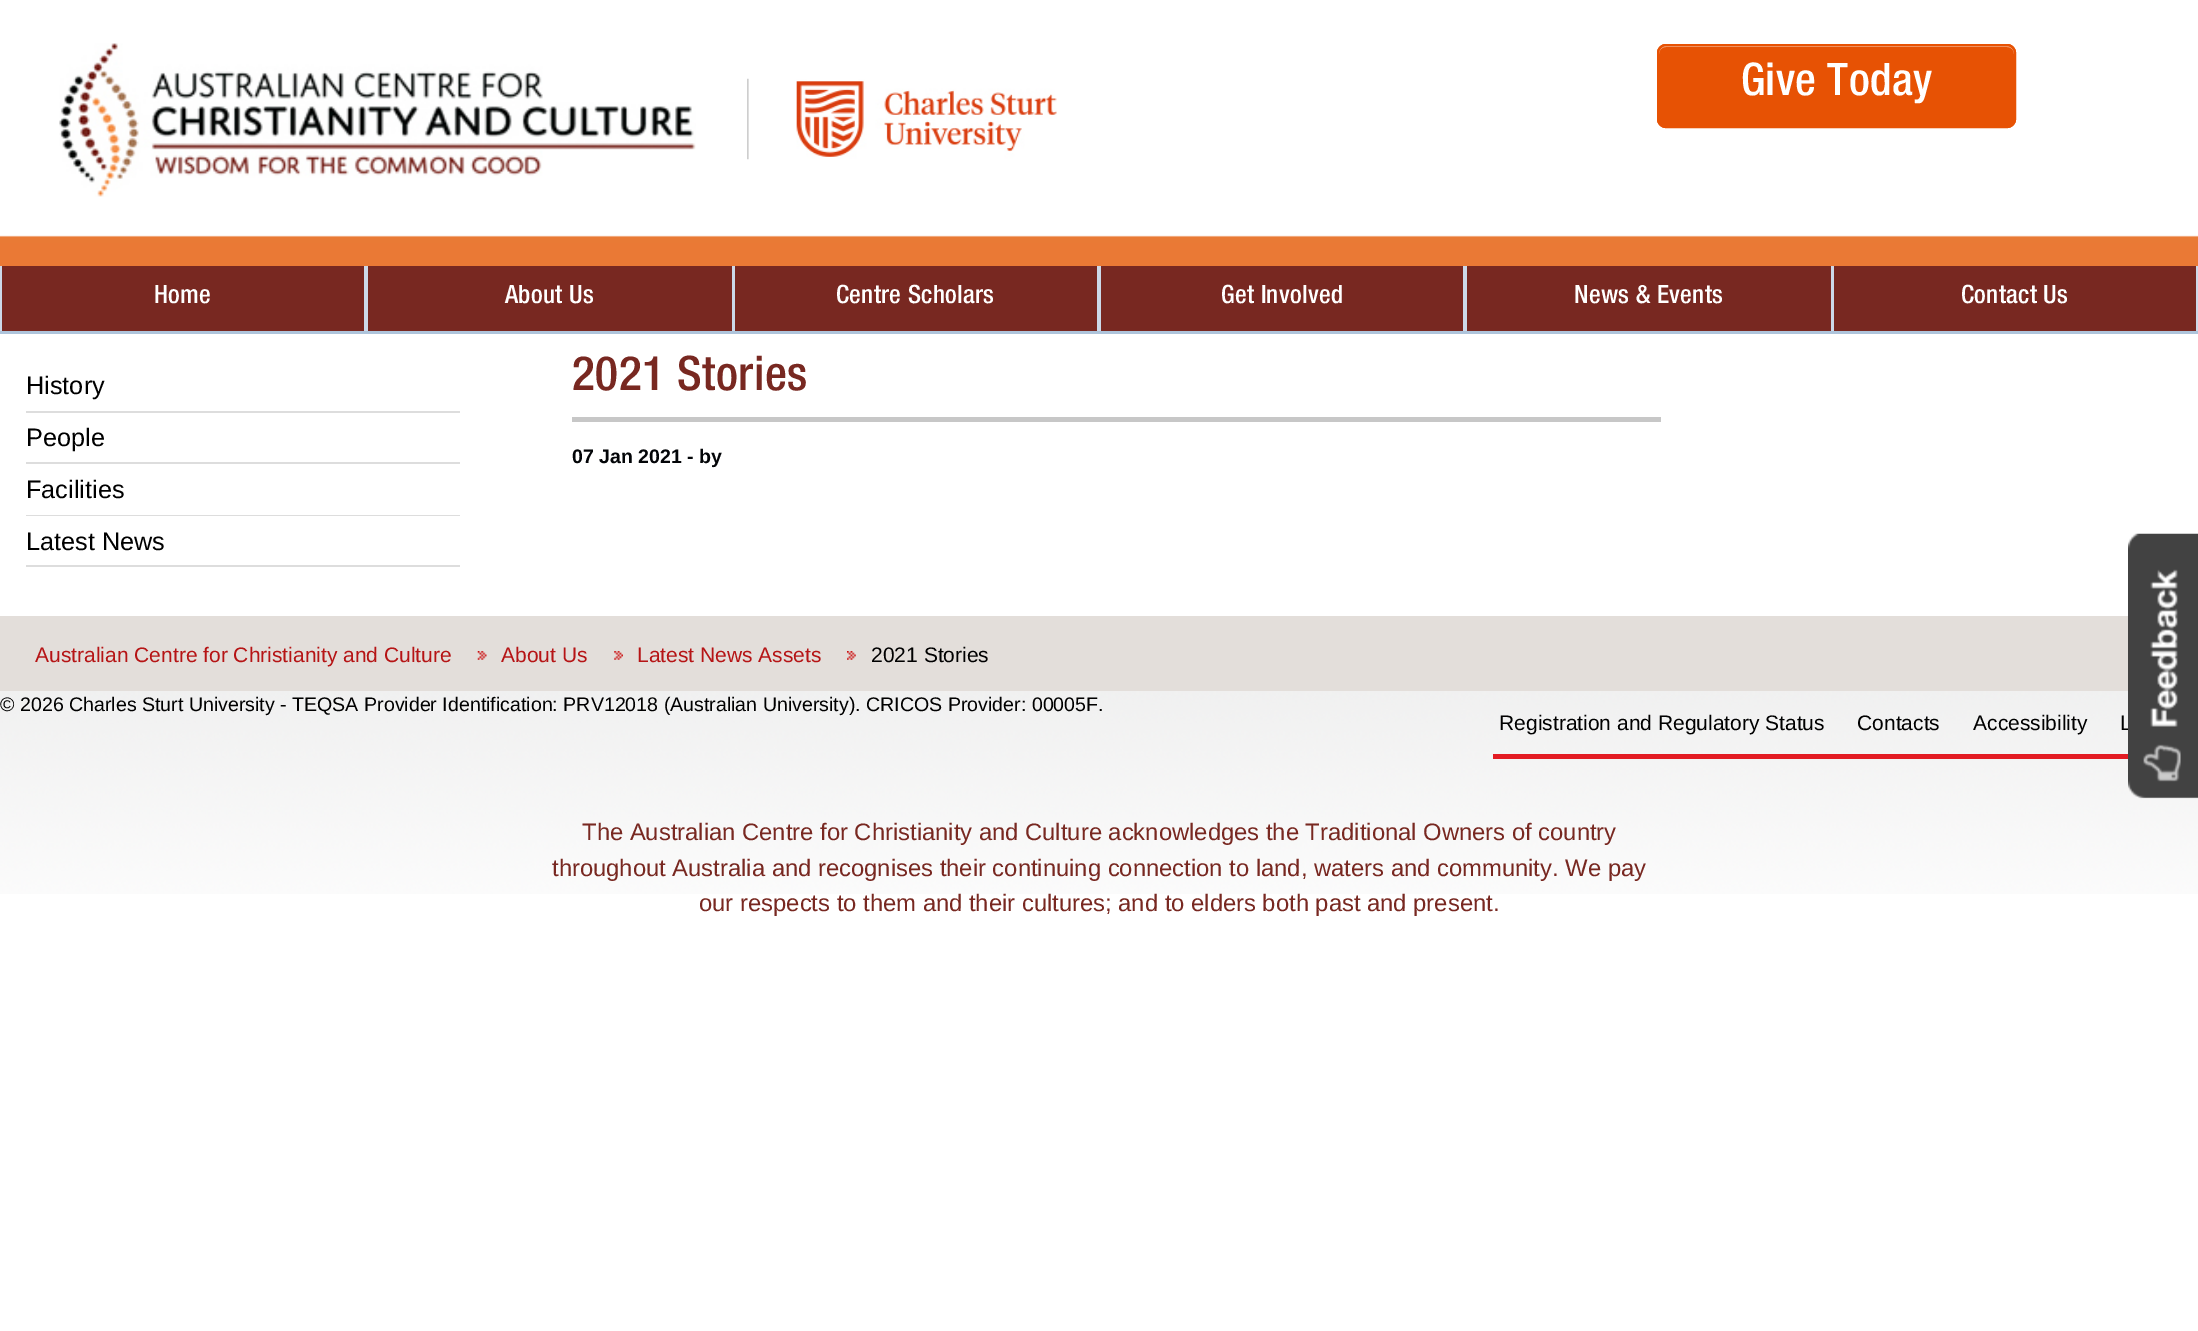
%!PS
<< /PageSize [2198 1331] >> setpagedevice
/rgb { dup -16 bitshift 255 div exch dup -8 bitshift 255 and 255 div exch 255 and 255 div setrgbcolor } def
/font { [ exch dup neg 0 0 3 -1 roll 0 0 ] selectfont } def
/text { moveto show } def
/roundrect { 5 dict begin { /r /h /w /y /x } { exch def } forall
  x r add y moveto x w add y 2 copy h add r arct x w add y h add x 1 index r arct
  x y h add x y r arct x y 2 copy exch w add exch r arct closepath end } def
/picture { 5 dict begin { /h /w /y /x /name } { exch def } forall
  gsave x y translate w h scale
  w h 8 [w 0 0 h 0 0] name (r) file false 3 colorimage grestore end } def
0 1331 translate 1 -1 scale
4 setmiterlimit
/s1 { /LiberationSans-Regular 25.25 font 16#000000 rgb } def
/s2 { /LiberationSans-Bold 19.6 font 16#030508 rgb } def
/s3 { /LiberationSans-Regular 21 font 16#B61415 rgb } def
/s4 { /LiberationSans-Regular 21 font 16#000000 rgb } def
/s5 { /LiberationSans-Regular 19.6 font 16#000000 rgb } def
/s6 { /LiberationSans-Regular 23.8 font 16#782821 rgb } def
16#FFFFFF rgb
0 0 2198 1331 rectfill
(pic1.raw) 0 235 2198 659 picture
(pic2.raw) 59 43 637 154 picture
(pic3.raw) 747 78 310 82 picture
16#E75204 rgb
1657 44 359 84 9 roundrect fill
16#F3A982 rgb
1666 47 moveto 2007 47 lineto 2011 47 2014 50 2014 54 curveto 2014 53 lineto 2014 49 2011 46 2007 46 curveto 1666 46 lineto 1662 46 1659 49 1659 53 curveto 1659 54 lineto 1659 50 1662 47 1666 47 curveto closepath fill
16#E75204 rgb
2 setlinewidth
1658 45 357 82 8 roundrect stroke
/HelveticaNeue-Medium 45 font
16#FFFFFF rgb
1741 95 moveto 0.3 0 (Give Today) ashow
16#AEC4DB rgb
0 331 2198 3 rectfill
16#782821 rgb
2 266 362 65 rectfill
16#CCD9E9 rgb
364 266 4 65 rectfill
0 266 2 65 rectfill
/HelveticaNeue-Medium 25.25 font
16#FFFFFF rgb
154 303 moveto 0.3 0 (Home) ashow
16#782821 rgb
368 266 364 65 rectfill
16#CCD9E9 rgb
732 266 3 65 rectfill
16#FFFFFF rgb
505 303 moveto 0.3 0 (About Us) ashow
16#782821 rgb
735 266 362 65 rectfill
16#CCD9E9 rgb
1097 266 4 65 rectfill
16#FFFFFF rgb
836 303 moveto 0.3 0 (Centre Scholars) ashow
16#782821 rgb
1101 266 362 65 rectfill
16#CCD9E9 rgb
1463 266 4 65 rectfill
16#FFFFFF rgb
1221 303 moveto 0.3 0 (Get Involved) ashow
16#782821 rgb
1467 266 364 65 rectfill
16#CCD9E9 rgb
1831 266 3 65 rectfill
16#FFFFFF rgb
1574 303 moveto 0.3 0 (News & Events) ashow
16#782821 rgb
1834 266 362 65 rectfill
16#CCD9E9 rgb
2196 266 2 65 rectfill
16#FFFFFF rgb
1961 303 moveto 0.3 0 (Contact Us) ashow
0 334 2198 282 rectfill
16#DDDDDD rgb
26 411 434 2 rectfill
s1
(History) 26 394 text
16#DDDDDD rgb
26 462 434 2 rectfill
s1
(People) 26 446 text
16#DDDDDD rgb
26 515 434 1 rectfill
s1
(Facilities) 26 498 text
16#DDDDDD rgb
26 565 434 2 rectfill
s1
(Latest News) 26 550 text
16#C7C7C7 rgb
572 417 1089 5 rectfill
/HelveticaNeue-Medium 47.5 font
16#782821 rgb
572 390 moveto 0.5 0 (2021 Stories) ashow
s2
(07 Jan 2021 - by) 572 463 text
16#E3DEDA rgb
0 616 2128 75 rectfill
s3
(Australian Centre for Christianity and Culture) 35 662 text
(pic4.raw) 477 651 10 9 picture
(About Us) 501 662 text
(pic5.raw) 614 651 9 9 picture
(Latest News Assets) 637 662 text
(pic6.raw) 847 651 9 9 picture
s4
(2021 Stories) 871 662 text
s5
(© 2026 Charles Sturt University - TEQSA Provider Identification: PRV12018 \(Australian University\). CRICOS Provider: 00005F.) 0 711 text
16#E31B23 rgb
1493 754 635 5 rectfill
s4
(Registration and Regulatory Status) 1499 730 text
(Contacts) 1857 730 text
(Accessibility) 1973 730 text
(L) 2120 730 text
s6
(The Australian Centre for Christianity and Culture acknowledges the Traditional Owners of country) 582 840 text
(throughout Australia and recognises their continuing connection to land, waters and community. We pay) 552 876 text
(our respects to them and their cultures; and to elders both past and present.) 699 911 text
(pic7.raw) 2128 533 70 266 picture
showpage
